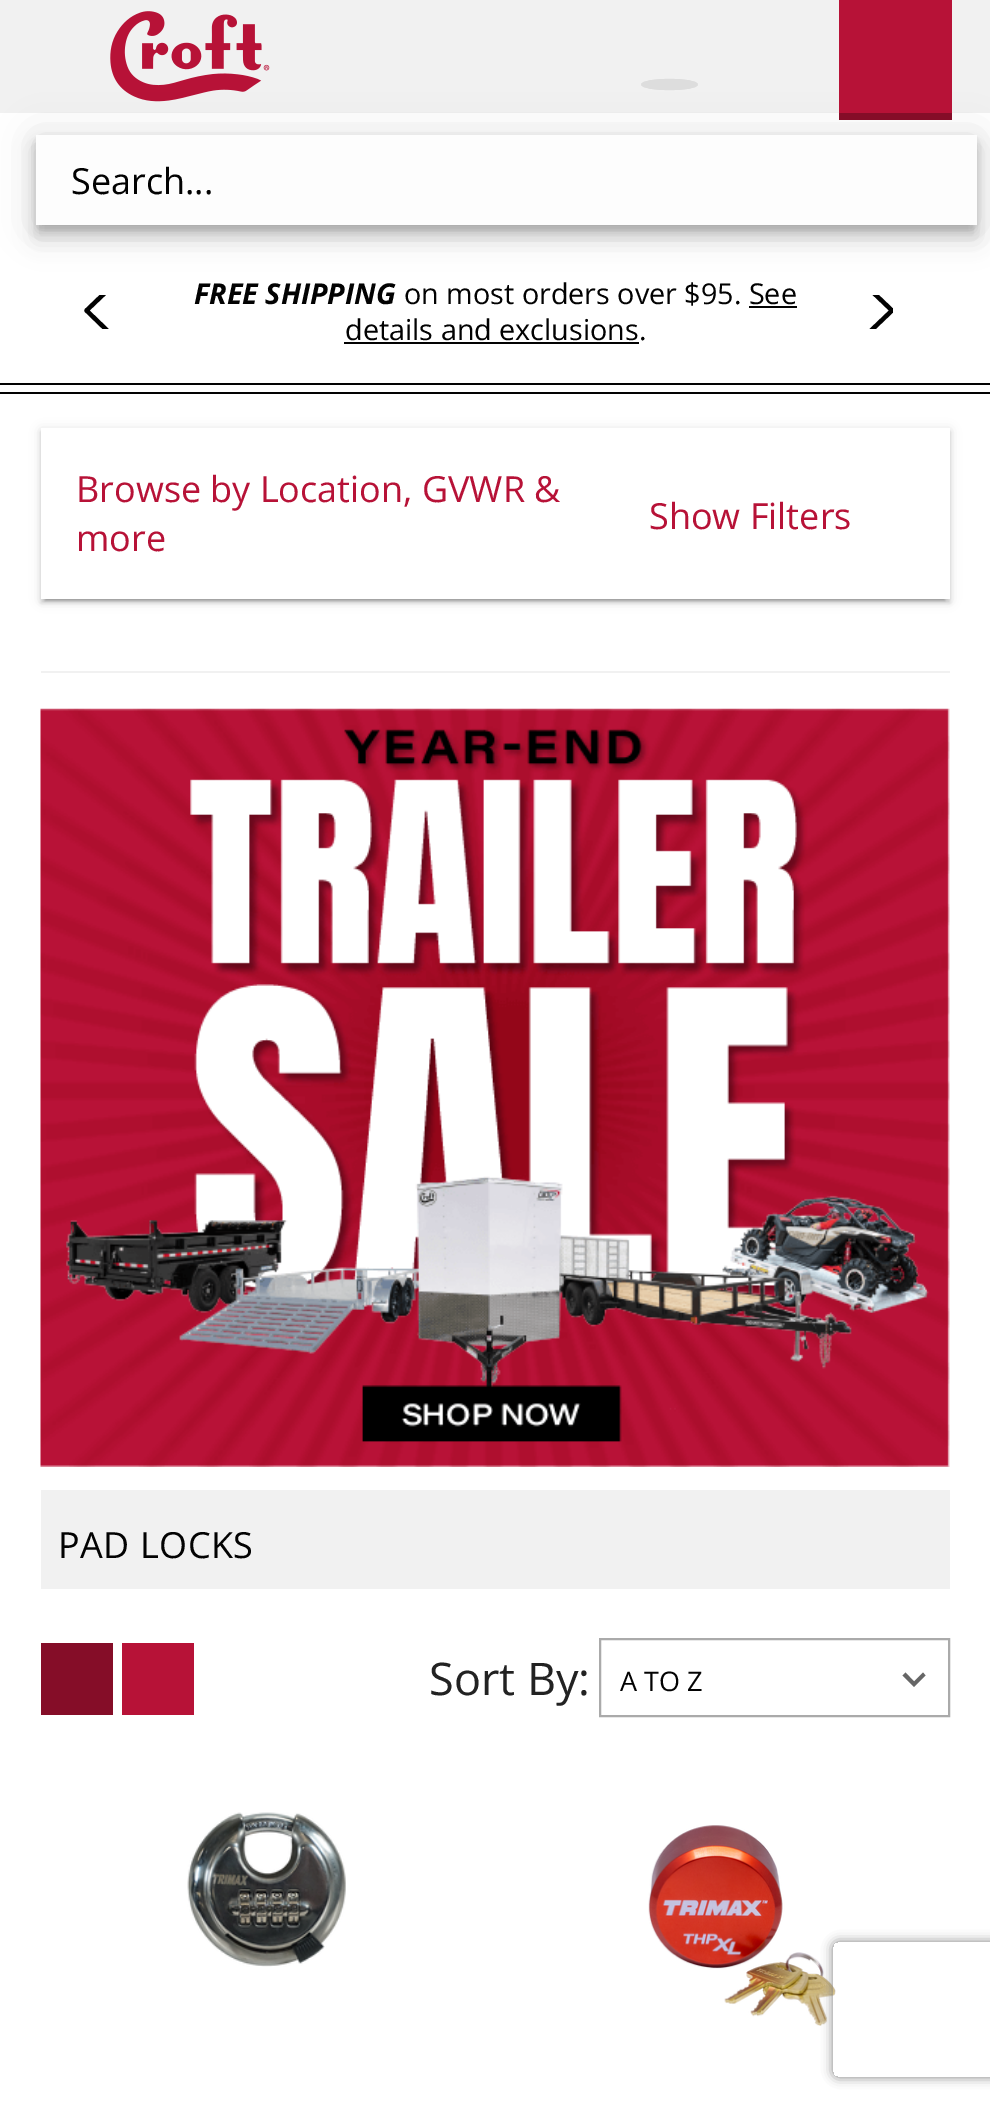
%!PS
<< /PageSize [990 2107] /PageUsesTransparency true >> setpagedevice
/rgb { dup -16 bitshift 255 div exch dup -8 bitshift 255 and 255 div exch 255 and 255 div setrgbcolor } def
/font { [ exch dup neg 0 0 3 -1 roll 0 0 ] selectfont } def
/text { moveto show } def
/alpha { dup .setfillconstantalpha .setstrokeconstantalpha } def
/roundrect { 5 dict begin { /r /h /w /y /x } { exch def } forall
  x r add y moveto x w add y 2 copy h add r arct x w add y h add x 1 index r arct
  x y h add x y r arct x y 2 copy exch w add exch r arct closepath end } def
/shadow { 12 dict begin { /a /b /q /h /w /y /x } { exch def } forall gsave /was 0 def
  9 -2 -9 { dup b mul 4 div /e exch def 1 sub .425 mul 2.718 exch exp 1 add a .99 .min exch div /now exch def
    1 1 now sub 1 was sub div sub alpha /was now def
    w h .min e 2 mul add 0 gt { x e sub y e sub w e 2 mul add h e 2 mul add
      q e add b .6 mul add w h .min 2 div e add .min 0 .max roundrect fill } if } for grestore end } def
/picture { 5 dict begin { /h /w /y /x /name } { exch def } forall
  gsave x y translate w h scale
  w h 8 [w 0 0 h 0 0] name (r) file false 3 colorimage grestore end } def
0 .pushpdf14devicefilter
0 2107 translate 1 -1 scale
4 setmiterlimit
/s1 { /OpenSans-Regular 36 font 16#020202 rgb } def
/s2 { /OpenSans-BoldItalic 28.75 font 16#020202 rgb } def
/s3 { /OpenSans-Regular 28.75 font 16#020202 rgb } def
/s4 { /OpenSans-Regular 36 font 16#B71237 rgb } def
/s5 { /OpenSans-Regular 45 font 16#222222 rgb } def
/s6 { /OpenSans-Regular 27 font 16#020202 rgb } def
16#FFFFFF rgb
0 0 990 2107 rectfill
16#F1F1F1 rgb
0 0 990 113 rectfill
(pic1.raw) 110 11 160 91 picture
16#DDDDDD rgb
669.5 79 moveto 685 79 697.5 81.5 697.5 84.5 curveto 697.5 87.5 685 90 669.5 90 curveto 654 90 641.5 87.5 641.5 84.5 curveto 641.5 81.5 654 79 669.5 79 curveto closepath fill
2.2 setlinewidth
669.5 80 moveto 684.5 80 696.5 82 696.5 84.5 curveto 696.5 87 684.5 89 669.5 89 curveto 654.5 89 642.5 87 642.5 84.5 curveto 642.5 82 654.5 80 669.5 80 curveto closepath stroke
16#000000 rgb
36 137 941 90 0 20 0.12 shadow
16#B71237 rgb
839 0 113 113 rectfill
16#000000 rgb
36 149 941 90 0 11 0.14 shadow
16#850D28 rgb
839 113 113 7 rectfill
16#000000 rgb
38 144 936 86 0 5.5 0.2 shadow
16#FDFDFD rgb
36 135 941 90 rectfill
s1
(Search...) 71 194 text
0 383 990 2 rectfill
gsave
83 295 52 34 rectclip
4.3 setlinewidth
1 setlinecap
1 setlinejoin
131.5 267.5 moveto 86.5 310.5 lineto 131 353.5 lineto stroke
grestore
s2
(FREE SHIPPING) 194 304 text
s3
(on most orders over $95. See) 404 304 text
(details and exclusions.) 345 340 text
749 306 48 2 rectfill
344 342 295 2 rectfill
gsave
844 295 49 34 rectclip
4.3 setlinewidth
1 setlinecap
1 setlinejoin
847 267.5 moveto 892 310.5 lineto 847 353.5 lineto stroke
grestore
0 392 990 2 rectfill
gsave
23 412 moveto 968 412 lineto 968 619 lineto 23 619 lineto closepath 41 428 moveto 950 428 lineto 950 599 lineto 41 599 lineto closepath eoclip newpath
16#000000 rgb
41 430 909 171 0 5.5 0.12 shadow
grestore
gsave
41 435 moveto 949 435 lineto 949 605 lineto 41 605 lineto closepath 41 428 moveto 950 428 lineto 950 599 lineto 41 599 lineto closepath eoclip newpath
16#000000 rgb
45 439 900 162 0 1 0.2 shadow
grestore
gsave
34 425 moveto 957 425 lineto 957 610 lineto 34 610 lineto closepath 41 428 moveto 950 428 lineto 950 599 lineto 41 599 lineto closepath eoclip newpath
16#000000 rgb
41 432 909 171 0 2 0.14 shadow
grestore
s4
(Browse by Location, GVWR &) 76 502 text
(more) 76 551 text
(Show Filters) 649 529 text
16#F1F1F1 rgb
41 671 909 2 rectfill
(pic2.raw) 40 708 910 759 picture
41 1490 909 99 rectfill
16#020202 rgb
58 1558 moveto 0.5 0 (PAD LOCKS) ashow
16#850D28 rgb
41 1643 72 72 rectfill
16#B71237 rgb
122 1643 72 72 rectfill
s5
(Sort By:) 429 1695 text
16#666666 rgb
923 1672.5 moveto 914 1681.5 lineto 905.5 1672.5 lineto 902.5 1675.5 lineto 914 1687 lineto 925.5 1675.5 lineto closepath fill
16#AAAAAA rgb
2 setlinewidth
600 1639 349 77 rectstroke
s6
(A TO Z) 620 1691 text
(pic3.raw) 187 1812 159 155 picture
(pic4.raw) 648 1825 188 201 picture
gsave
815 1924 moveto 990 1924 lineto 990 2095 lineto 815 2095 lineto closepath 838 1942 moveto 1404 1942 lineto 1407 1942 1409 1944 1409 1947 curveto 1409 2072 lineto 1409 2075 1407 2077 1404 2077 curveto 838 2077 lineto 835 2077 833 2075 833 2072 curveto 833 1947 lineto 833 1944 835 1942 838 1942 curveto closepath eoclip newpath
16#808080 rgb
833 1942 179 135 5 5.5 1 shadow
grestore
.poppdf14devicefilter showpage
